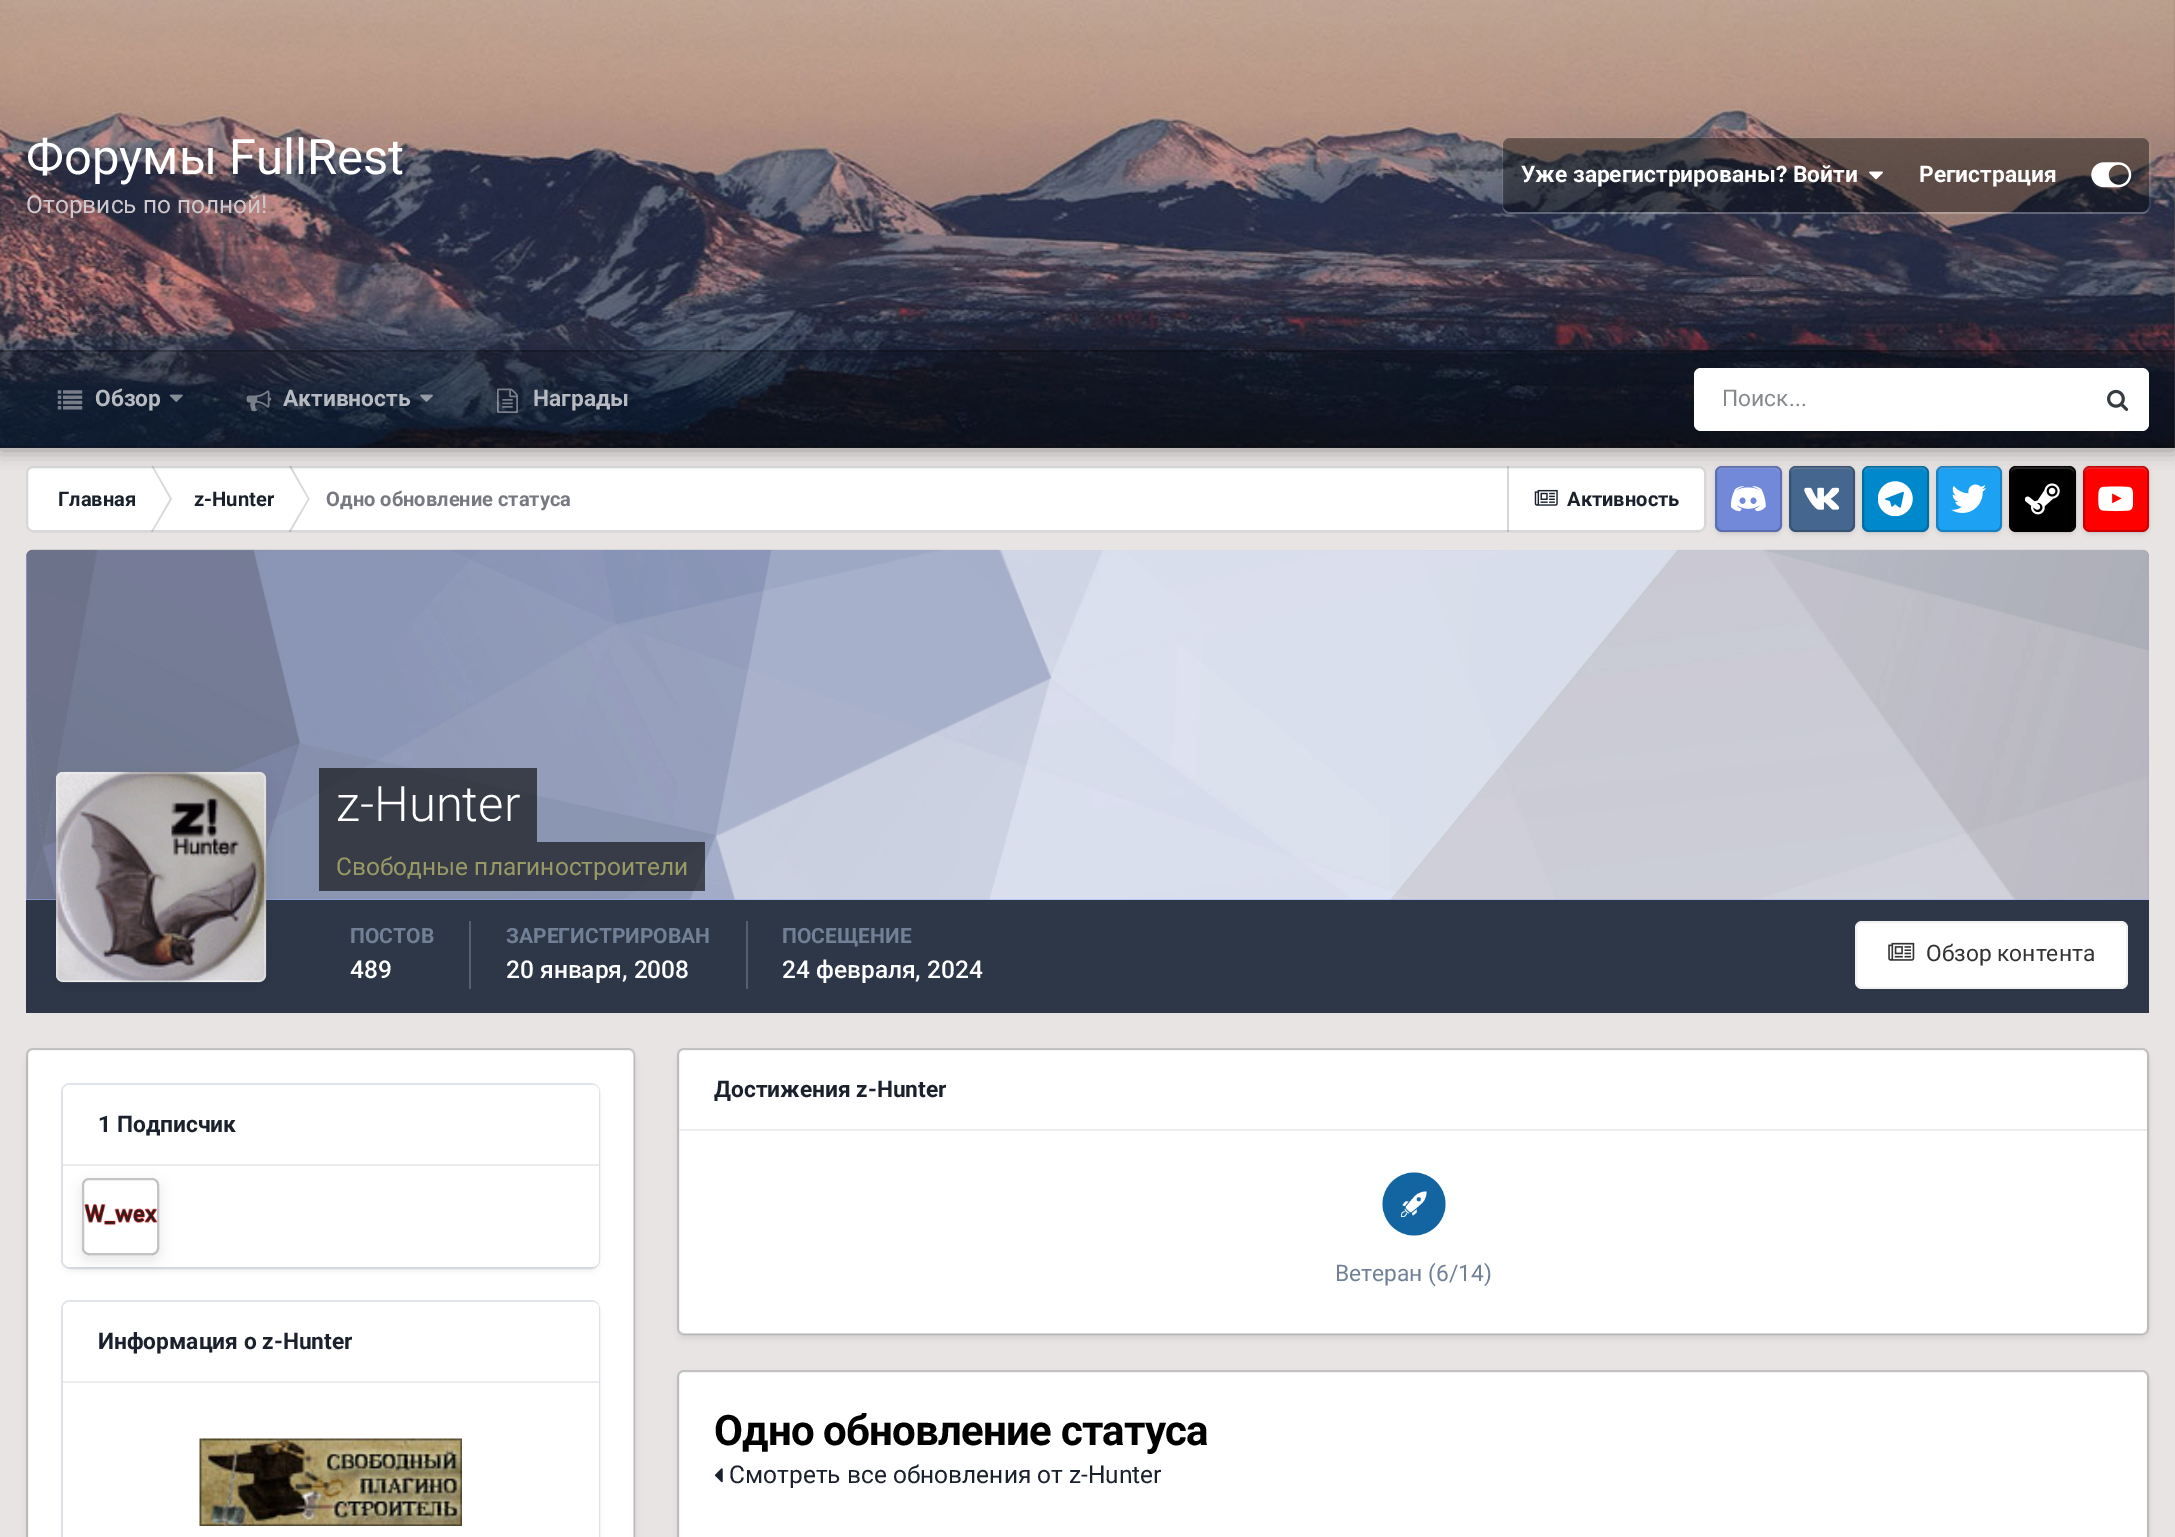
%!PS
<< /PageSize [2175 1537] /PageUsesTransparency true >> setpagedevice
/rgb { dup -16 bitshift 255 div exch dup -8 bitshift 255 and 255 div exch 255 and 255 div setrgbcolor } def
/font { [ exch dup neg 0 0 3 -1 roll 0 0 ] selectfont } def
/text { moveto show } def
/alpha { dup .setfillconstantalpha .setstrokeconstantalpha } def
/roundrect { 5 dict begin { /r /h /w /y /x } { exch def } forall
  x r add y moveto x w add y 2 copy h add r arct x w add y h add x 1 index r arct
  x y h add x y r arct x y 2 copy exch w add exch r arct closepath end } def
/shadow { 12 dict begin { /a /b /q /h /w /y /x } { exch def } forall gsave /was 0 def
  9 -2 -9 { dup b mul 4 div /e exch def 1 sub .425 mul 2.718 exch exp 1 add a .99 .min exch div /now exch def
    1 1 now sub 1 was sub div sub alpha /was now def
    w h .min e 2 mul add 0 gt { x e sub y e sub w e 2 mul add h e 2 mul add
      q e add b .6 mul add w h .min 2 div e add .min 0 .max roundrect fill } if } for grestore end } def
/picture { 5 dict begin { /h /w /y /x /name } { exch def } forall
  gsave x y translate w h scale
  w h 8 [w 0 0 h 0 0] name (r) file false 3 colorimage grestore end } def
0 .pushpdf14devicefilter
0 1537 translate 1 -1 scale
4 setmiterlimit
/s1 { /Roboto-Regular 49 font 16#FFFFFF rgb } def
/s2 { /Roboto-Regular 24.5 font 16#CEC8CC rgb } def
/s3 { /Roboto-Bold 22.75 font 16#FFFFFF rgb } def
/s4 { /Roboto-Bold 22.75 font 16#B7BBC1 rgb } def
/s5 { /Roboto-Regular 22.75 font 16#868A8D rgb } def
/s6 { /Roboto-Bold 20.1 font 16#1A202C rgb } def
/s7 { /Roboto-Bold 20.1 font 16#767980 rgb } def
/s8 { /Roboto-Light 49 font 16#FFFFFF rgb } def
/s9 { /Roboto-Regular 24.5 font 16#999966 rgb } def
/s10 { /Roboto-Bold 21 font 16#718096 rgb } def
/s11 { /Roboto-Medium 24.5 font 16#FFFFFF rgb } def
/s12 { /Roboto-Regular 22.75 font 16#333333 rgb } def
/s13 { /Roboto-Bold 22.75 font 16#1A202C rgb } def
/s14 { /Roboto-Regular 22.75 font 16#718096 rgb } def
/s15 { /Roboto-Regular 24.5 font 16#1A202C rgb } def
16#E9E4E4 rgb
0 0 2175 1537 rectfill
16#FFFFFF rgb
26 466 1680 66 7 roundrect fill
16#D7D8D9 rgb
153 466 moveto 151.5 466 lineto 170 499 lineto 172 499 lineto closepath fill
151 532 moveto 152.5 532 lineto 172 499 lineto 170 499 lineto closepath fill
291 466 moveto 289 466 lineto 308 499 lineto 309.5 499 lineto closepath fill
288.5 532 moveto 290.5 532 lineto 309.5 499 lineto 308 499 lineto closepath fill
1507 466 2 66 rectfill
(pic10.raw) 1534 489 24 17 picture
0.2 alpha
16#353C41 rgb
2 setlinewidth
27 467 1678 64 6 roundrect stroke
1 alpha
16#000000 rgb
1715 467 67 67 7 2.5 0.1 shadow
16#7289DA rgb
1715 466 67 66 7 roundrect fill
16#879BE0 rgb
1722 469 moveto 1719 469 1717 471 1717 474 curveto 1717 465 1723 467 1731 467 curveto 1766 467 lineto 1774 467 1780 465 1780 474 curveto 1780 471 1777 469 1774 469 curveto closepath fill
(pic11.raw) 1731 486 35 26 picture
0.2 alpha
16#000000 rgb
1716 467 65 64 6 roundrect stroke
1 alpha
1789 467 66 67 7 2.5 0.1 shadow
16#45668E rgb
1789 466 66 66 7 roundrect fill
16#617D9F rgb
1796 469 moveto 1793 469 1790 471 1790 474 curveto 1790 465 1796 467 1804 467 curveto 1839 467 lineto 1847 467 1853 465 1853 474 curveto 1853 471 1851 469 1848 469 curveto closepath fill
(pic12.raw) 1804 487 35 23 picture
0.2 alpha
16#000000 rgb
1790 467 64 64 6 roundrect stroke
1 alpha
1862 467 67 67 7 2.5 0.1 shadow
16#0088CC rgb
1862 466 67 66 7 roundrect fill
16#269AD4 rgb
1869 469 moveto 1866 469 1864 471 1864 474 curveto 1864 465 1870 467 1878 467 curveto 1913 467 lineto 1921 467 1927 465 1927 474 curveto 1927 471 1924 469 1922 469 curveto closepath fill
(pic13.raw) 1878 481 35 35 picture
0.2 alpha
16#000000 rgb
1863 467 65 64 6 roundrect stroke
1 alpha
1936 467 66 67 7 2.5 0.1 shadow
16#1DA1F2 rgb
1936 466 66 66 7 roundrect fill
16#3FAFF4 rgb
1942 469 moveto 1940 469 1937 471 1937 474 curveto 1937 465 1943 467 1951 467 curveto 1986 467 lineto 1994 467 2000 465 2000 474 curveto 2000 471 1998 469 1995 469 curveto closepath fill
(pic14.raw) 1951 484 35 29 picture
0.2 alpha
16#000000 rgb
1937 467 64 64 6 roundrect stroke
1 alpha
2009 467 67 67 7 2.5 0.1 shadow
2009 466 67 66 7 roundrect fill
16#262626 rgb
2016 469 moveto 2013 469 2011 471 2011 474 curveto 2011 465 2017 467 2025 467 curveto 2060 467 lineto 2068 467 2074 465 2074 474 curveto 2074 471 2071 469 2068 469 curveto closepath fill
(pic15.raw) 2025 483 35 32 picture
0.2 alpha
16#000000 rgb
2010 467 65 64 6 roundrect stroke
1 alpha
2083 467 66 67 7 2.5 0.1 shadow
16#FF0000 rgb
2083 466 66 66 7 roundrect fill
16#FF2626 rgb
2090 469 moveto 2087 469 2084 471 2084 474 curveto 2084 465 2090 467 2098 467 curveto 2133 467 lineto 2141 467 2147 465 2147 474 curveto 2147 471 2145 469 2142 469 curveto closepath fill
(pic16.raw) 2098 486 35 26 picture
0.2 alpha
16#000000 rgb
2084 467 64 64 6 roundrect stroke
1 alpha
0 2 2175 448 0 9 0.35 shadow
16#8B6E6A rgb
0 0 2175 448 rectfill
(pic1.raw) 0 0 2175 448 picture
s1
(Форумы FullRest) 26 174 text
s2
(Оторвись по полной!) 26 213 text
0.07 alpha
16#FFFFFF rgb
1503 138 647 75 8 roundrect stroke
0.2 alpha
1503 145 moveto 1503 207 lineto 1503 211 1506 214 1510 214 curveto 2142 214 lineto 2146 214 2149 211 2149 207 curveto 2149 205 lineto 2149 209 2146 212 2142 212 curveto 1510 212 lineto 1506 212 1503 209 1503 205 curveto closepath fill
0.4 alpha
16#000000 rgb
1503 138 646 74 7 roundrect fill
1 alpha
s3
(Уже зарегистрированы? Войти) 1521 182 text
(pic2.raw) 1869 171 14 9 picture
(Регистрация) 1919 182 text
(pic3.raw) 2091 162 41 26 picture
0.2 alpha
16#000000 rgb
0 350 2175 98 rectfill
0 350 2175 2 rectfill
0 446 2175 2 rectfill
1 alpha
(pic4.raw) 57 390 26 20 picture
s4
(Обзор) 95 406 text
(pic5.raw) 169 394 14 8 picture
(pic6.raw) 246 390 26 22 picture
(Активность) 283 406 text
(pic7.raw) 420 394 13 8 picture
(pic8.raw) 497 388 21 25 picture
(Награды) 533 406 text
16#FFFFFF rgb
1694 368 455 63 7 roundrect fill
s5
(Поиск...) 1722 406 text
(pic9.raw) 2107 389 22 22 picture
s6
(Главная) 58 506 text
(z-Hunter) 194 506 text
s7
(Одно обновление статуса) 326 506 text
s6
(Активность) 1567 506 text
16#99AFFF rgb
33 550 moveto 2142 550 lineto 2146 550 2149 553 2149 557 curveto 2149 900 lineto 26 900 lineto 26 557 lineto 26 553 29 550 33 550 curveto closepath fill
(pic17.raw) 26 549 2123 351 picture
16#2D3748 rgb
26 900 2123 113 rectfill
16#FFFFFF rgb
56 772 210 210 7 roundrect fill
(pic18.raw) 56 771 210 211 picture
gsave
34 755 moveto 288 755 lineto 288 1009 lineto 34 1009 lineto closepath 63 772 moveto 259 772 lineto 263 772 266 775 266 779 curveto 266 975 lineto 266 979 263 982 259 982 curveto 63 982 lineto 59 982 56 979 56 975 curveto 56 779 lineto 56 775 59 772 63 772 curveto closepath eoclip newpath
16#000000 rgb
56 777 210 210 7 7 0.1 shadow
grestore
0.3 alpha
57 773 208 208 6 roundrect stroke
0.6 alpha
16#000000 rgb
319 768 218 74 rectfill
1 alpha
s8
(z-Hunter) 336 821 text
0.6 alpha
16#000000 rgb
319 842 386 49 rectfill
1 alpha
s9
(Свободные плагиностроители) 336 875 text
16#575F6D rgb
469 921 2 68 rectfill
s10
(ПОСТОВ) 350 943 text
s11
(489) 350 978 text
16#575F6D rgb
746 921 2 68 rectfill
s10
(ЗАРЕГИСТРИРОВАН) 506 943 text
s11
(20 января, 2008) 506 978 text
s10
(ПОСЕЩЕНИЕ) 782 943 text
s11
(24 февраля, 2024) 782 978 text
1855 921 273 68 7 roundrect fill
0.07 alpha
16#333333 rgb
1856 922 271 66 6 roundrect stroke
1 alpha
(pic19.raw) 1888 942 27 19 picture
s12
(Обзор контента) 1926 961 text
16#000000 rgb
28 1054 606 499 5 3.5 0.1 shadow
16#FFFFFF rgb
28 1050 606 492 5 roundrect fill
0.2 alpha
16#353C41 rgb
27 1049 607 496 6 roundrect stroke
1 alpha
16#000000 rgb
65 1090 532 179 5 3.5 0.1 shadow
0.2 alpha
16#718096 rgb
62 1084 537 184 8 roundrect stroke
1 alpha
16#FFFFFF rgb
63 1085 536 182 7 roundrect fill
70 1085 moveto 592 1085 lineto 596 1085 599 1088 599 1092 curveto 599 1166 lineto 63 1166 lineto 63 1092 lineto 63 1088 66 1085 70 1085 curveto closepath fill
16#EAECEF rgb
63 1164 536 2 rectfill
s13
(1 Подписчик) 98 1132 text
(pic20.raw) 84 1204 73 21 picture
gsave
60 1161 moveto 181 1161 lineto 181 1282 lineto 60 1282 lineto closepath 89 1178 moveto 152 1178 lineto 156 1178 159 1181 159 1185 curveto 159 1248 lineto 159 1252 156 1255 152 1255 curveto 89 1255 lineto 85 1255 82 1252 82 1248 curveto 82 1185 lineto 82 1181 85 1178 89 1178 curveto closepath eoclip newpath
16#000000 rgb
82 1183 77 77 7 7 0.1 shadow
grestore
0.3 alpha
16#353C41 rgb
83 1179 75 75 6 roundrect stroke
1 alpha
16#000000 rgb
65 1307 532 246 5 3.5 0.1 shadow
0.2 alpha
16#718096 rgb
62 1301 537 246 8 roundrect stroke
1 alpha
16#FFFFFF rgb
63 1302 536 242 7 roundrect fill
70 1302 moveto 592 1302 lineto 596 1302 599 1305 599 1309 curveto 599 1383 lineto 63 1383 lineto 63 1309 lineto 63 1305 66 1302 70 1302 curveto closepath fill
16#EAECEF rgb
63 1381 536 2 rectfill
s13
(Информация о z-Hunter) 98 1349 text
(pic21.raw) 199 1438 263 88 picture
16#000000 rgb
679 1054 1468 283 5 3.5 0.1 shadow
16#FFFFFF rgb
679 1050 1468 284 5 roundrect fill
0.2 alpha
16#353C41 rgb
678 1049 1470 285 6 roundrect stroke
1 alpha
16#EAECEF rgb
679 1129 1468 2 rectfill
s13
(Достижения z-Hunter) 714 1097 text
(pic22.raw) 1382 1172 64 64 picture
s14
(Ветеран \(6/14\)) 1335 1281 text
16#000000 rgb
679 1376 1468 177 5 3.5 0.1 shadow
16#FFFFFF rgb
679 1372 1468 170 5 roundrect fill
0.2 alpha
16#353C41 rgb
678 1371 1470 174 6 roundrect stroke
/Roboto-Bold 42 font
1 alpha
16#000000 rgb
714 1445 moveto -0.8 0 (Одно обновление статуса) ashow
(pic23.raw) 714 1468 9 15 picture
s15
(Смотреть все обновления от z-Hunter) 729 1483 text
.poppdf14devicefilter showpage
